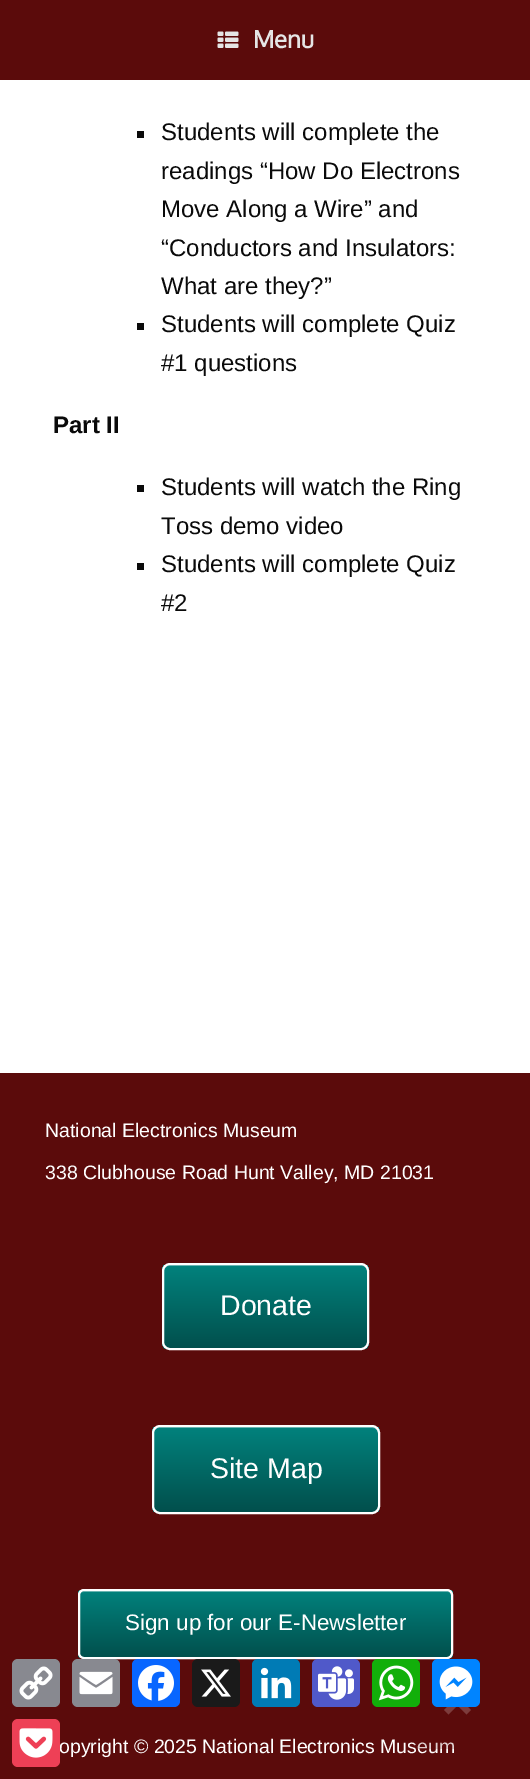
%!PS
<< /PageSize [530 1779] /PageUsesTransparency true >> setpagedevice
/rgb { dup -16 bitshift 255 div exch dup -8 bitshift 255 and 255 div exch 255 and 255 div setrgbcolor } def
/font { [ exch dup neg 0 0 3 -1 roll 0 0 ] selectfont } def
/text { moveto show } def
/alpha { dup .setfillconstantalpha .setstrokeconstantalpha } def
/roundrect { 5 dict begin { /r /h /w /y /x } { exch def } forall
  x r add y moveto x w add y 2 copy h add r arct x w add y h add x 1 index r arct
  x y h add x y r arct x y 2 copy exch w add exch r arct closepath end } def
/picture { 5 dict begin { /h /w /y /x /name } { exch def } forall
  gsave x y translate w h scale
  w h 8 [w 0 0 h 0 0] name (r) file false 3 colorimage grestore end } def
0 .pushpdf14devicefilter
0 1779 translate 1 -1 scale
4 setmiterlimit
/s1 { /Oxygen-Bold 24 font 16#E5E5E5 rgb } def
/s2 { /LiberationSans-Regular 24 font 16#0A0A0A rgb } def
/s3 { /LiberationSans-Bold 24 font 16#0A0A0A rgb } def
/s4 { /LiberationSans-Regular 19.5 font 16#FFFFFF rgb } def
/s5 { /LiberationSans-Regular 28.5 font 16#FFFFFF rgb } def
/s6 { /LiberationSans-Regular 22.4 font 16#FFFFFF rgb } def
16#5B0B0B rgb
0 0 530 1779 rectfill
(pic1.raw) 217 31 22 17 picture
s1
(Menu) 253 48 text
16#FFFFFF rgb
0 80 530 993 rectfill
16#0A0A0A rgb
137 131 7 7 rectfill
s2
(Students will complete the) 161 140 text
(readings “How Do Electrons) 161 179 text
(Move Along a Wire” and) 161 217 text
(“Conductors and Insulators:) 161 256 text
(What are they?”) 161 294 text
137 323 7 7 rectfill
(Students will complete Quiz) 161 332 text
(#1 questions) 161 371 text
s3
(Part II) 53 433 text
137 485 7 7 rectfill
s2
(Students will watch the Ring) 161 495 text
(Toss demo video) 161 534 text
137 563 7 7 rectfill
(Students will complete Quiz) 161 572 text
(#2) 161 611 text
s4
(National Electronics Museum) 45 1137 text
(338 Clubhouse Road Hunt Valley, MD 21031) 45 1179 text
gsave
162 1263 207 87 8 roundrect clip newpath
gsave 162 1265 moveto 369 1265 lineto 369 1349 lineto 162 1349 lineto closepath clip newpath
<< /ShadingType 2 /ColorSpace /DeviceRGB /Coords [164 1349 164 1265] /Extend [true true] /Function << /FunctionType 2 /Domain [0 1] /C0 [0.004 0.31 0.298] /C1 [0.004 0.51 0.49] /N 1 >> >> shfill grestore
grestore
16#349B97 rgb
169 1266 moveto 362 1266 lineto 365 1266 368 1268 368 1272 curveto 368 1269 367 1266 363 1265 curveto 170 1265 lineto 166 1265 164 1268 164 1272 curveto 164 1268 166 1266 169 1266 curveto closepath fill
16#FFFFFF rgb
2 setlinewidth
163 1264 205 85 7 roundrect stroke
s5
(Donate) 220 1315 text
gsave
152 1425 228 89 8 roundrect clip newpath
gsave 152 1427 moveto 380 1427 lineto 380 1512 lineto 152 1512 lineto closepath clip newpath
<< /ShadingType 2 /ColorSpace /DeviceRGB /Coords [153 1512 153 1427] /Extend [true true] /Function << /FunctionType 2 /Domain [0 1] /C0 [0.004 0.31 0.298] /C1 [0.004 0.51 0.49] /N 1 >> >> shfill grestore
grestore
16#349B97 rgb
159 1428 moveto 372 1428 lineto 376 1428 378 1430 378 1434 curveto 378 1433 lineto 378 1430 375 1427 372 1427 curveto 159 1427 lineto 156 1427 153 1430 153 1433 curveto 153 1434 lineto 153 1430 155 1428 159 1428 curveto closepath fill
16#FFFFFF rgb
153 1426 226 87 7 roundrect stroke
(Site Map) 210 1478 text
gsave
78 1589 375 70 6 roundrect clip newpath
gsave 78 1590 moveto 453 1590 lineto 453 1658 lineto 78 1658 lineto closepath clip newpath
<< /ShadingType 2 /ColorSpace /DeviceRGB /Coords [80 1658 80 1590] /Extend [true true] /Function << /FunctionType 2 /Domain [0 1] /C0 [0.004 0.31 0.298] /C1 [0.004 0.51 0.49] /N 1 >> >> shfill grestore
grestore
0.2 alpha
84 1592 moveto 447 1592 lineto 450 1592 452 1593 452 1596 curveto 452 1594 lineto 452 1592 450 1590 448 1590 curveto 84 1590 lineto 82 1590 80 1592 80 1594 curveto 80 1596 lineto 80 1593 81 1592 84 1592 curveto closepath fill
1 alpha
79 1590 373 68 5 roundrect stroke
s6
(Sign up for our E-Newsletter) 125 1630 text
s4
(opyright © 2025 National Electronics Museum) 59 1753 text
16#888990 rgb
12 1659 48 48 6 roundrect fill
(pic2.raw) 19 1666 34 34 picture
72 1659 48 48 6 roundrect fill
(pic3.raw) 79 1671 34 24 picture
16#0866FF rgb
132 1659 48 48 6 roundrect fill
(pic4.raw) 138 1665 36 36 picture
16#1A1A1A rgb
192 1659 48 48 6 roundrect fill
(pic5.raw) 201 1669 30 28 picture
16#007BB5 rgb
252 1659 48 48 6 roundrect fill
(pic6.raw) 260 1667 32 32 picture
16#5059C9 rgb
312 1659 48 48 6 roundrect fill
(pic7.raw) 318 1666 36 34 picture
0.2 alpha
16#5B0B0B rgb
414 1662 87 87 5 roundrect fill
1 alpha
16#12AF0A rgb
372 1659 48 48 6 roundrect fill
(pic8.raw) 378 1665 36 36 picture
16#7C3C3C rgb
471 1710 moveto 457.5 1696.5 lineto 444 1710 lineto 448.5 1714.5 lineto 457.5 1705.5 lineto 466.5 1714.5 lineto closepath fill
16#0084FF rgb
432 1659 48 48 6 roundrect fill
(pic9.raw) 439 1666 34 34 picture
16#EE4056 rgb
12 1719 48 48 6 roundrect fill
(pic10.raw) 19 1728 34 30 picture
.poppdf14devicefilter showpage
